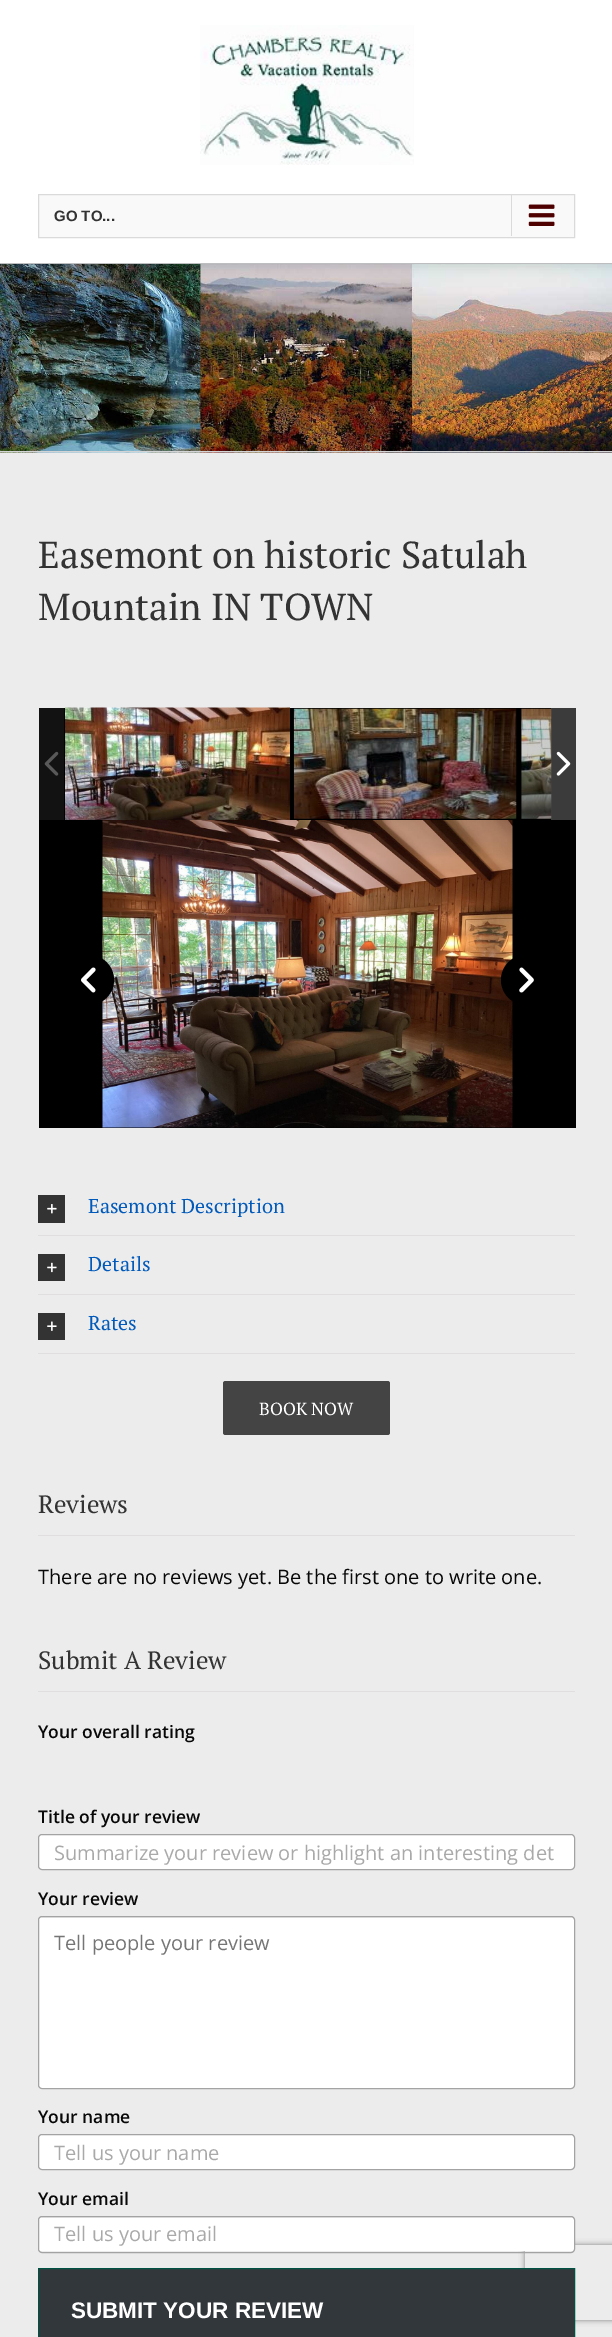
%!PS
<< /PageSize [612 2337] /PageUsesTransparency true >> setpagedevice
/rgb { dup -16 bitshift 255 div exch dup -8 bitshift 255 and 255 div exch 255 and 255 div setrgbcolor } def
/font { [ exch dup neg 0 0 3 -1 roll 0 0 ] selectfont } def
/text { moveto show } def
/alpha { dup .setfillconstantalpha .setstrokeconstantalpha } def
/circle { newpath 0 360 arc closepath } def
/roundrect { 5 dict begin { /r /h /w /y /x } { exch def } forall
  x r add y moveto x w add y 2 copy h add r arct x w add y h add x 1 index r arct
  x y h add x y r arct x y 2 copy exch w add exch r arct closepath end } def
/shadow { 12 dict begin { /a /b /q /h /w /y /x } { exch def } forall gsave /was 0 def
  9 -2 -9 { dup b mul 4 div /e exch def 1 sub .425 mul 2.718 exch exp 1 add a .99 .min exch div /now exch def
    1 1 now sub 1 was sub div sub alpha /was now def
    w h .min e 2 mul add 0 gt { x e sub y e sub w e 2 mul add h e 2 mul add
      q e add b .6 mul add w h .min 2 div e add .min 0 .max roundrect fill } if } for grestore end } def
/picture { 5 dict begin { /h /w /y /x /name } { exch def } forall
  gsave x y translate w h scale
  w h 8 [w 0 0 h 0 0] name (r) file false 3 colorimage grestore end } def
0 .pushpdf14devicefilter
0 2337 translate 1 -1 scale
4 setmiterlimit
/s1 { /LiberationSans-Bold 15 font 16#333333 rgb } def
/s2 { /PTSerif-Regular 37.5 font 16#333333 rgb } def
/s3 { /PTSerif-Regular 20 font 16#015ABA rgb } def
/s4 { /PTSerif-Regular 17.5 font 16#FFFFFF rgb } def
/s5 { /PTSerif-Regular 25 font 16#333333 rgb } def
/s6 { /OpenSans-Regular 20 font 16#080808 rgb } def
/s7 { /OpenSans-SemiBold 17.5 font 16#080808 rgb } def
/s8 { /OpenSans-Regular 20 font 16#AAA9A9 rgb } def
/s9 { /OpenSans-Regular 20 font 16#757575 rgb } def
/s10 { /LiberationSans-Bold 22.5 font 16#FFFFFF rgb } def
16#ECECEC rgb
0 0 612 2337 rectfill
16#F6F6F6 rgb
0 452 612 1 rectfill
(pic3.raw) 0 264 612 189 picture
16#D2D3D4 rgb
0 263 612 1 rectfill
16#000000 rgb
-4 -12 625 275 0 6 0.19 shadow
16#FFFFFF rgb
0 0 612 263 rectfill
(pic1.raw) 200 25 214 140 picture
16#F9F9F9 rgb
38.5 194.5 moveto 574.5 194.5 lineto 574.5 237.5 lineto 38.5 237.5 lineto closepath gsave fill grestore
16#DADADA rgb
stroke
s1
(GO TO...) 54 221 text
16#DADADA rgb
511 195 1 41 rectfill
(pic2.raw) 528 204 27 22 picture
16#D2D3D4 rgb
0 451 612 1 rectfill
s2
(Easemont on historic Satulah) 38 568 text
(Mountain IN TOWN) 38 620 text
16#000000 rgb
39 708 537 420 rectfill
16#121212 rgb
39 708 25 112 rectfill
(pic4.raw) 44 751 15 25 picture
(pic5.raw) 65 707 225 113 picture
(pic6.raw) 293 708 224 111 picture
16#3B3B3B rgb
551 708 25 112 rectfill
(pic7.raw) 521 708 31 111 picture
(pic8.raw) 556 751 15 25 picture
(pic10.raw) 102 820 411 308 picture
16#000000 rgb
89 980 25 circle fill
(pic9.raw) 81 967 15 26 picture
526 980 25 circle fill
(pic11.raw) 519 967 15 26 picture
16#E0DEDE rgb
38 1235 537 1 rectfill
16#333333 rgb
38 1195 27 28 rectfill
(pic12.raw) 47 1204 10 10 picture
s3
(Easemont Description) 88 1213 text
16#E0DEDE rgb
38 1294 537 1 rectfill
16#333333 rgb
38 1254 27 27 rectfill
(pic13.raw) 47 1262 10 11 picture
s3
(Details) 88 1271 text
16#E0DEDE rgb
38 1353 537 1 rectfill
16#333333 rgb
38 1313 27 27 rectfill
(pic14.raw) 47 1321 10 10 picture
s3
(Rates) 88 1330 text
16#444444 rgb
223 1381 167 54 2.5 roundrect fill
s4
(BOOK NOW) 259 1415 text
16#E0DEDE rgb
38 1535 537 1 rectfill
s5
(Reviews) 38 1513 text
s6
(There are no reviews yet. Be the first one to write one.) 38 1584 text
16#E0DEDE rgb
38 1691 537 1 rectfill
s5
(Submit A Review) 38 1669 text
s7
(Your overall rating) 38 1738 text
(Title of your review) 38 1823 text
16#FFFFFF rgb
39 1835 535 34 2.5 roundrect fill
16#A3A3A3 rgb
38.5 1834.5 536 35 3.5 roundrect stroke
s8
(Summarize your review or highlight an interesting det) 54 1860 text
s7
(Your review) 38 1905 text
16#FFFFFF rgb
39 1918 535 170 2.5 roundrect fill
16#A3A3A3 rgb
38.5 1916.5 536 172 3.5 roundrect stroke
s9
(Tell people your review) 54 1950 text
s7
(Your name) 38 2123 text
16#FFFFFF rgb
39 2135 535 34 2.5 roundrect fill
16#A3A3A3 rgb
38.5 2134.5 536 35 3.5 roundrect stroke
s8
(Tell us your name) 54 2160 text
s7
(Your email) 38 2205 text
gsave
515 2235 moveto 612 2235 lineto 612 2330 lineto 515 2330 lineto closepath 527.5 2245 moveto 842.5 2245 lineto 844 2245 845 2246 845 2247.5 curveto 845 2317.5 lineto 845 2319 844 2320 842.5 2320 curveto 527.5 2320 lineto 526 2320 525 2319 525 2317.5 curveto 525 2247.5 lineto 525 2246 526 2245 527.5 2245 curveto closepath eoclip newpath
16#808080 rgb
525 2245 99 75 2.5 3 1 shadow
grestore
16#FFFFFF rgb
39 2218 535 33 2.5 roundrect fill
16#A3A3A3 rgb
38.5 2216.5 536 36 3.5 roundrect stroke
s8
(Tell us your email) 54 2241 text
16#32373C rgb
38.5 2268.5 moveto 574.5 2268.5 lineto 574.5 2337.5 lineto 38.5 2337.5 lineto closepath gsave fill grestore
16#005343 rgb
stroke
s10
(SUBMIT YOUR REVIEW) 71 2318 text
.poppdf14devicefilter showpage
